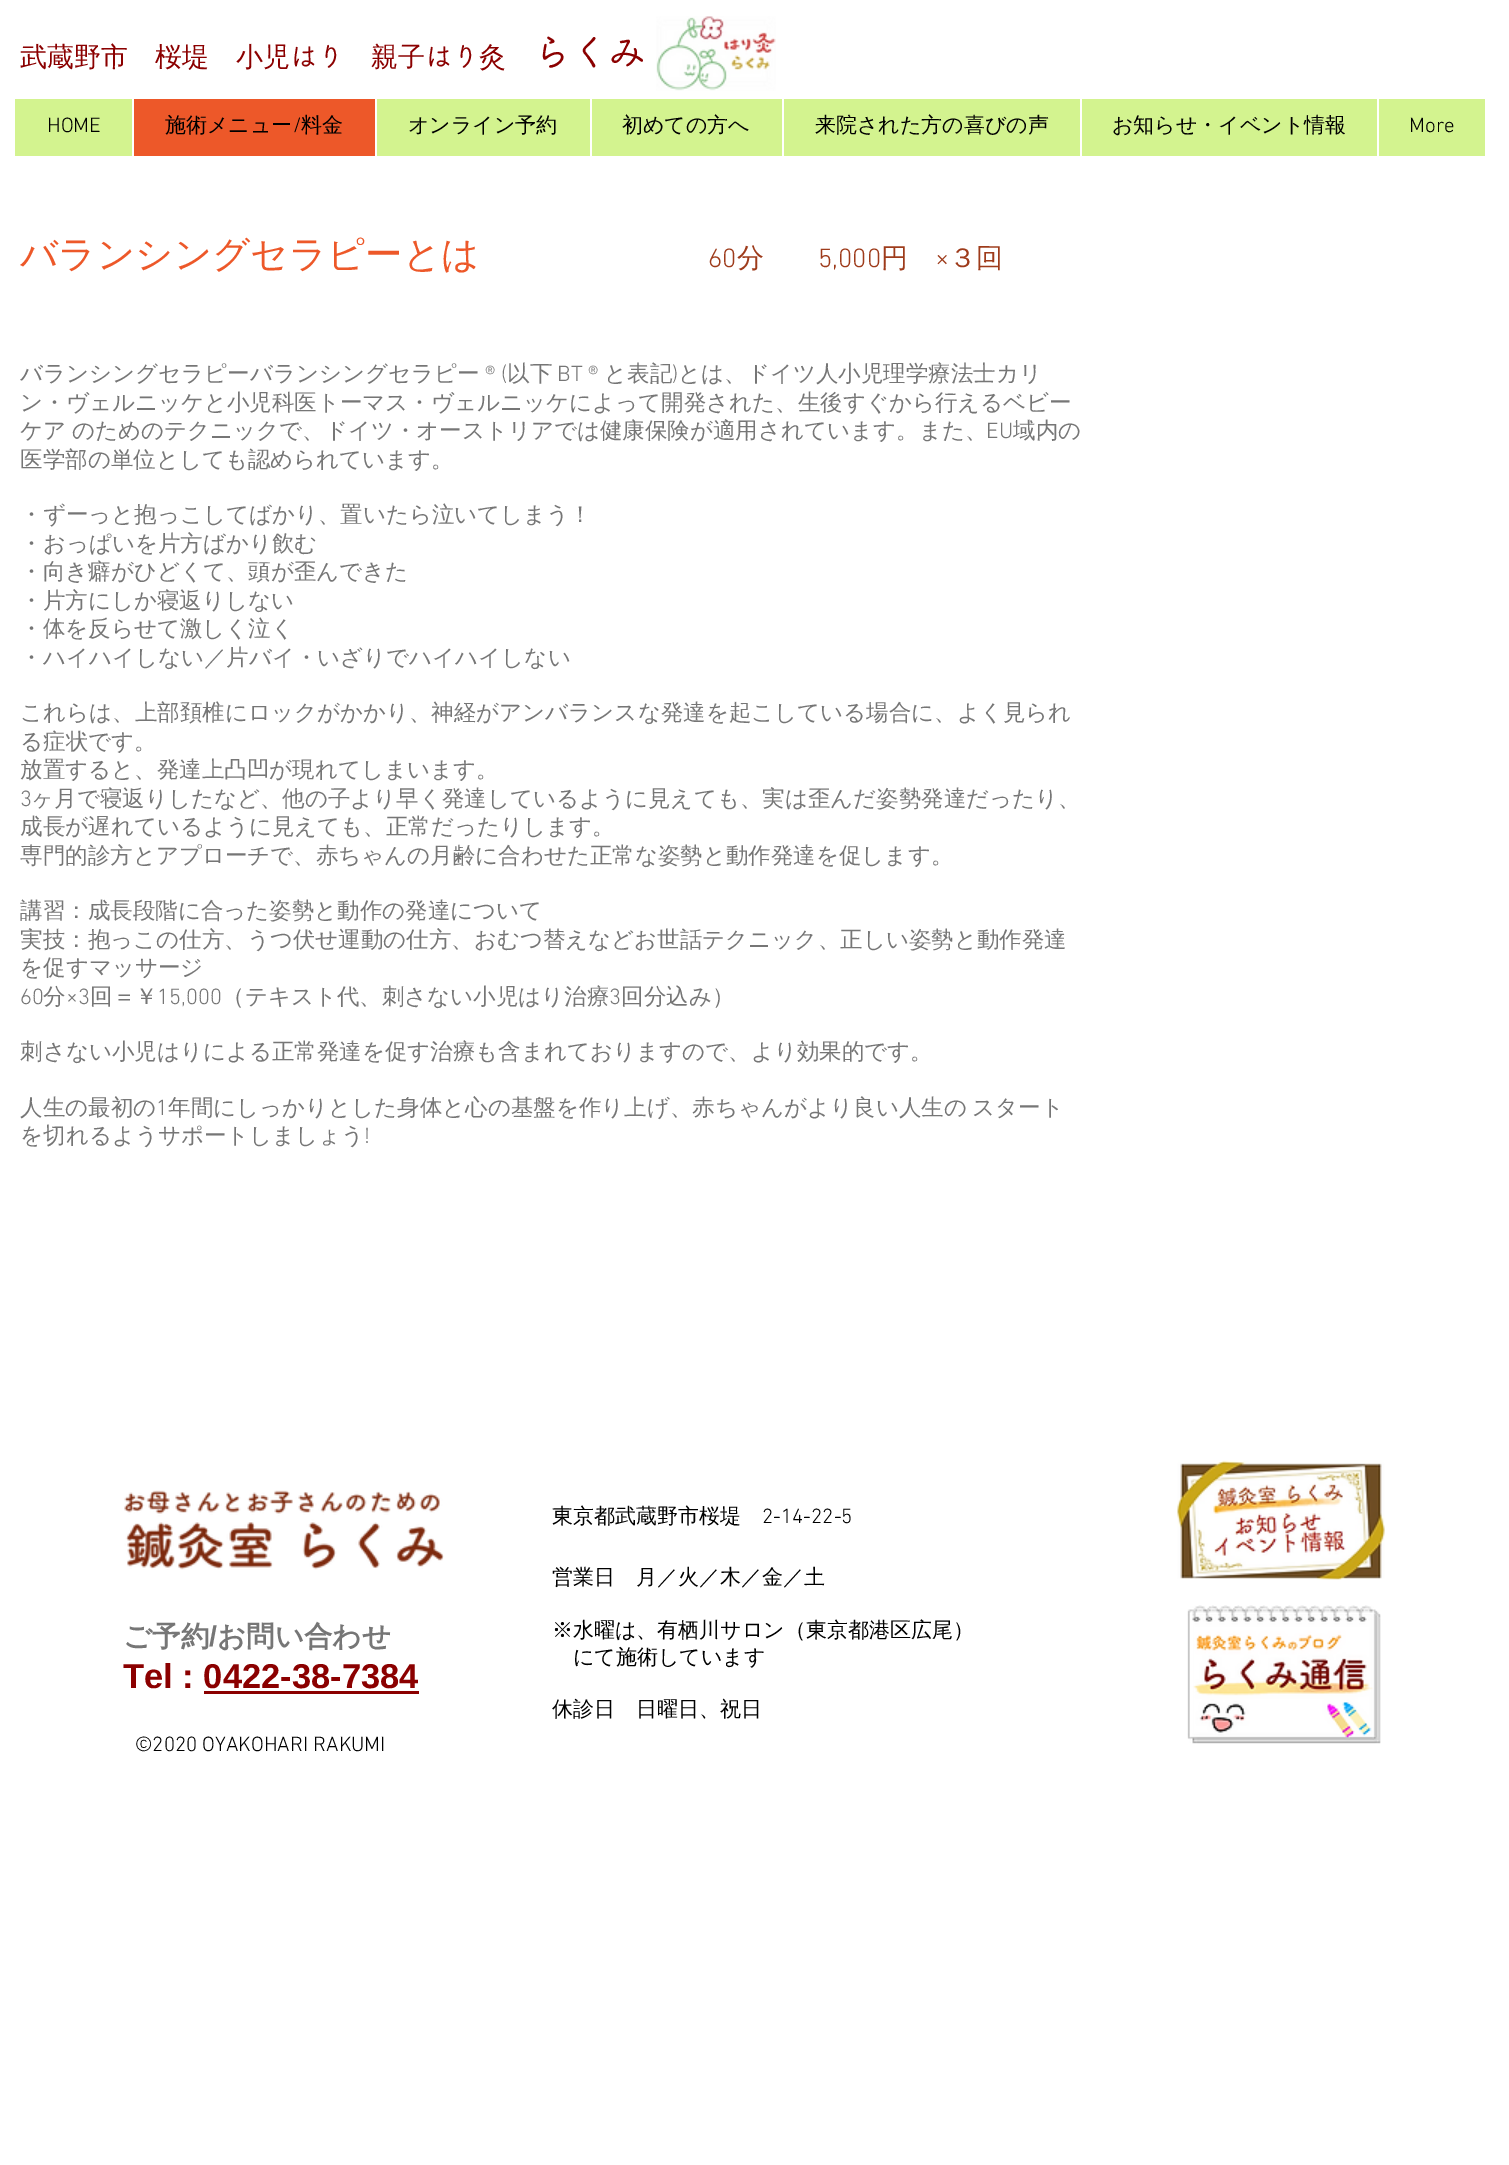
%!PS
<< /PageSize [1509 2165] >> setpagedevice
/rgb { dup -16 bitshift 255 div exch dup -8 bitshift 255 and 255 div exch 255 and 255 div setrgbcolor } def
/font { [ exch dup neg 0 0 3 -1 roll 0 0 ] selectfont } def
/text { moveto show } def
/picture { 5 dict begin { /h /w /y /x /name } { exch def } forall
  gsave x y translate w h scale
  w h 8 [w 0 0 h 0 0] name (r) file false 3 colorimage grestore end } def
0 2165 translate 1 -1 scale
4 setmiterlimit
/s1 { /WenQuanYiZenHei-Medium 27 font 16#8B0000 rgb } def
/s2 { /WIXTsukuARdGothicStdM-Medium 27 font 16#8B0000 rgb } def
/s3 { /WIXTsukuARdGothicStdM-Medium 37.5 font 16#8B0000 rgb } def
/s4 { /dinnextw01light-Light 21 font 16#000000 rgb } def
/s5 { /WenQuanYiZenHei-Medium 21 font 16#000000 rgb } def
/s6 { /WenQuanYiZenHei-Medium 37.5 font 16#ED5829 rgb } def
/s7 { /dinnextw01light-Light 27 font 16#9E3B1B rgb } def
/s8 { /WenQuanYiZenHei-Medium 27 font 16#9E3B1B rgb } def
/s9 { /WenQuanYiZenHei-Medium 22.5 font 16#767676 rgb } def
/s10 { /dinnextw01light-Light 22.5 font 16#767676 rgb } def
/s11 { /WenQuanYiZenHei-Bold 28.5 font 16#767676 rgb } def
/s12 { /LiberationSans-Bold 28.5 font 16#767676 rgb } def
/s13 { /LiberationSans-Bold 34.5 font 16#8B0000 rgb } def
16#FFFFFF rgb
0 0 1509 2165 rectfill
s1
(武蔵野市　桜堤　小児) 20 66 text
s2
(はり) 290 66 text
s1
(親子) 371 66 text
s2
(はり) 425 66 text
s1
(灸) 479 66 text
s3
(らくみ) 533 66 text
(pic1.raw) 656 16 120 75 picture
16#D3F38F rgb
15 99 1470 57 rectfill
s4
(HOME) 47 132 text
16#ED5829 rgb
134 99 241 57 rectfill
16#FFFFFF rgb
132 99 2 57 rectfill
s5
(施術メニュー) 165 132 text
s4
(/) 293 132 text
s5
(料金) 301 132 text
16#FFFFFF rgb
375 99 2 57 rectfill
s5
(オンライン予約) 408 132 text
16#FFFFFF rgb
590 99 2 57 rectfill
s5
(初めての方へ) 622 132 text
16#FFFFFF rgb
782 99 2 57 rectfill
s5
(来院された方の喜びの声) 815 132 text
16#FFFFFF rgb
1080 99 2 57 rectfill
s5
(お知らせ・イベント情報) 1112 132 text
16#FFFFFF rgb
1377 99 2 57 rectfill
s4
(More) 1409 132 text
s6
(バランシングセラピーとは) 20 267 text
s7
(60) 708 267 text
s8
(分) 737 267 text
s7
(5,000) 818 267 text
s8
(円) 881 267 text
s7
(×) 935 267 text
s8
(３回) 949 267 text
s9
(バランシングセラピーバランシングセラピー) 20 381 text
s10
(® \() 485 381 text
s9
(以下) 507 381 text
s10
(BT ®) 557 381 text
s9
(と表記) 604 381 text
s10
(\)) 672 381 text
s9
(とは、ドイツ人小児理学療法士カリ) 678 381 text
(ン・ヴェルニッケと小児科医トーマス・ヴェルニッケによって開発された、生後すぐから行えるベビー) 20 410 text
20 438 moveto -1 0 32 (ケア のためのテクニックで、ドイツ・オーストリアでは健康保険が適用されています。また、) widthshow
s10
(EU) 986 438 text
s9
(域内の) 1013 438 text
(医学部の単位としても認められています。) 20 467 text
(・ずーっと抱っこしてばかり、置いたら泣いてしまう！) 20 522 text
(・おっぱいを片方ばかり飲む) 20 551 text
(・向き癖がひどくて、頭が歪んできた) 20 579 text
(・片方にしか寝返りしない) 20 608 text
(・体を反らせて激しく泣く) 20 636 text
(・ハイハイしない／片バイ・いざりでハイハイしない) 20 665 text
(これらは、上部頚椎にロックがかかり、神経がアンバランスな発達を起こしている場合に、よく見られ) 20 720 text
(る症状です。) 20 749 text
(放置すると、発達上凸凹が現れてしまいます。) 20 777 text
s10
(3) 20 806 text
s9
(ヶ月で寝返りしたなど、他の子より早く発達しているように見えても、実は歪んだ姿勢発達だったり、) 31 806 text
(成長が遅れているように見えても、正常だったりします。) 20 834 text
(専門的診方とアプローチで、赤ちゃんの月齢に合わせた正常な姿勢と動作発達を促します。) 20 863 text
(講習：成長段階に合った姿勢と動作の発達について) 20 918 text
(実技：抱っこの仕方、うつ伏せ運動の仕方、おむつ替えなどお世話テクニック、正しい姿勢と動作発達) 20 947 text
(を促すマッサージ) 20 975 text
s10
(60) 20 1004 text
s9
(分) 43 1004 text
s10
(×3) 66 1004 text
s9
(回＝￥) 90 1004 text
s10
(15,000) 157 1004 text
s9
(（テキスト代、刺さない小児はり治療) 222 1004 text
s10
(3) 609 1004 text
s9
(回分込み）) 621 1004 text
(刺さない小児はりによる正常発達を促す治療も含まれておりますので、より効果的です。) 20 1059 text
(人生の最初の) 20 1115 text
s10
(1) 156 1115 text
/WenQuanYiZenHei-Medium 22.5 font
168 1115 moveto -1 0 32 (年間にしっかりとした身体と心の基盤を作り上げ、赤ちゃんがより良い人生の スタート) widthshow
(を切れるようサポートしましょう) 20 1143 text
s10
(!) 364 1143 text
(pic2.raw) 124 1490 320 80 picture
s5
(東京都武蔵野市桜堤) 552 1523 text
s4
(2-14-22-5) 762 1523 text
(pic3.raw) 1177 1460 208 120 picture
s11
(ご予約) 123 1646 text
s12
(/) 209 1646 text
s11
(お問い合わせ) 217 1646 text
s13
(Tel : 0422-38-7384) 123 1688 text
204 1691 215 3 rectfill
s5
(営業日　月／火／木／金／土) 552 1584 text
(※水曜は、有栖川サロン（東京都港区広尾）) 552 1637 text
(にて施術しています) 573 1664 text
(休診日　日曜日、祝日) 552 1716 text
(pic4.raw) 1187 1605 194 139 picture
s4
(©2020 OYAKOHARI RAKUMI) 135 1751 text
showpage
